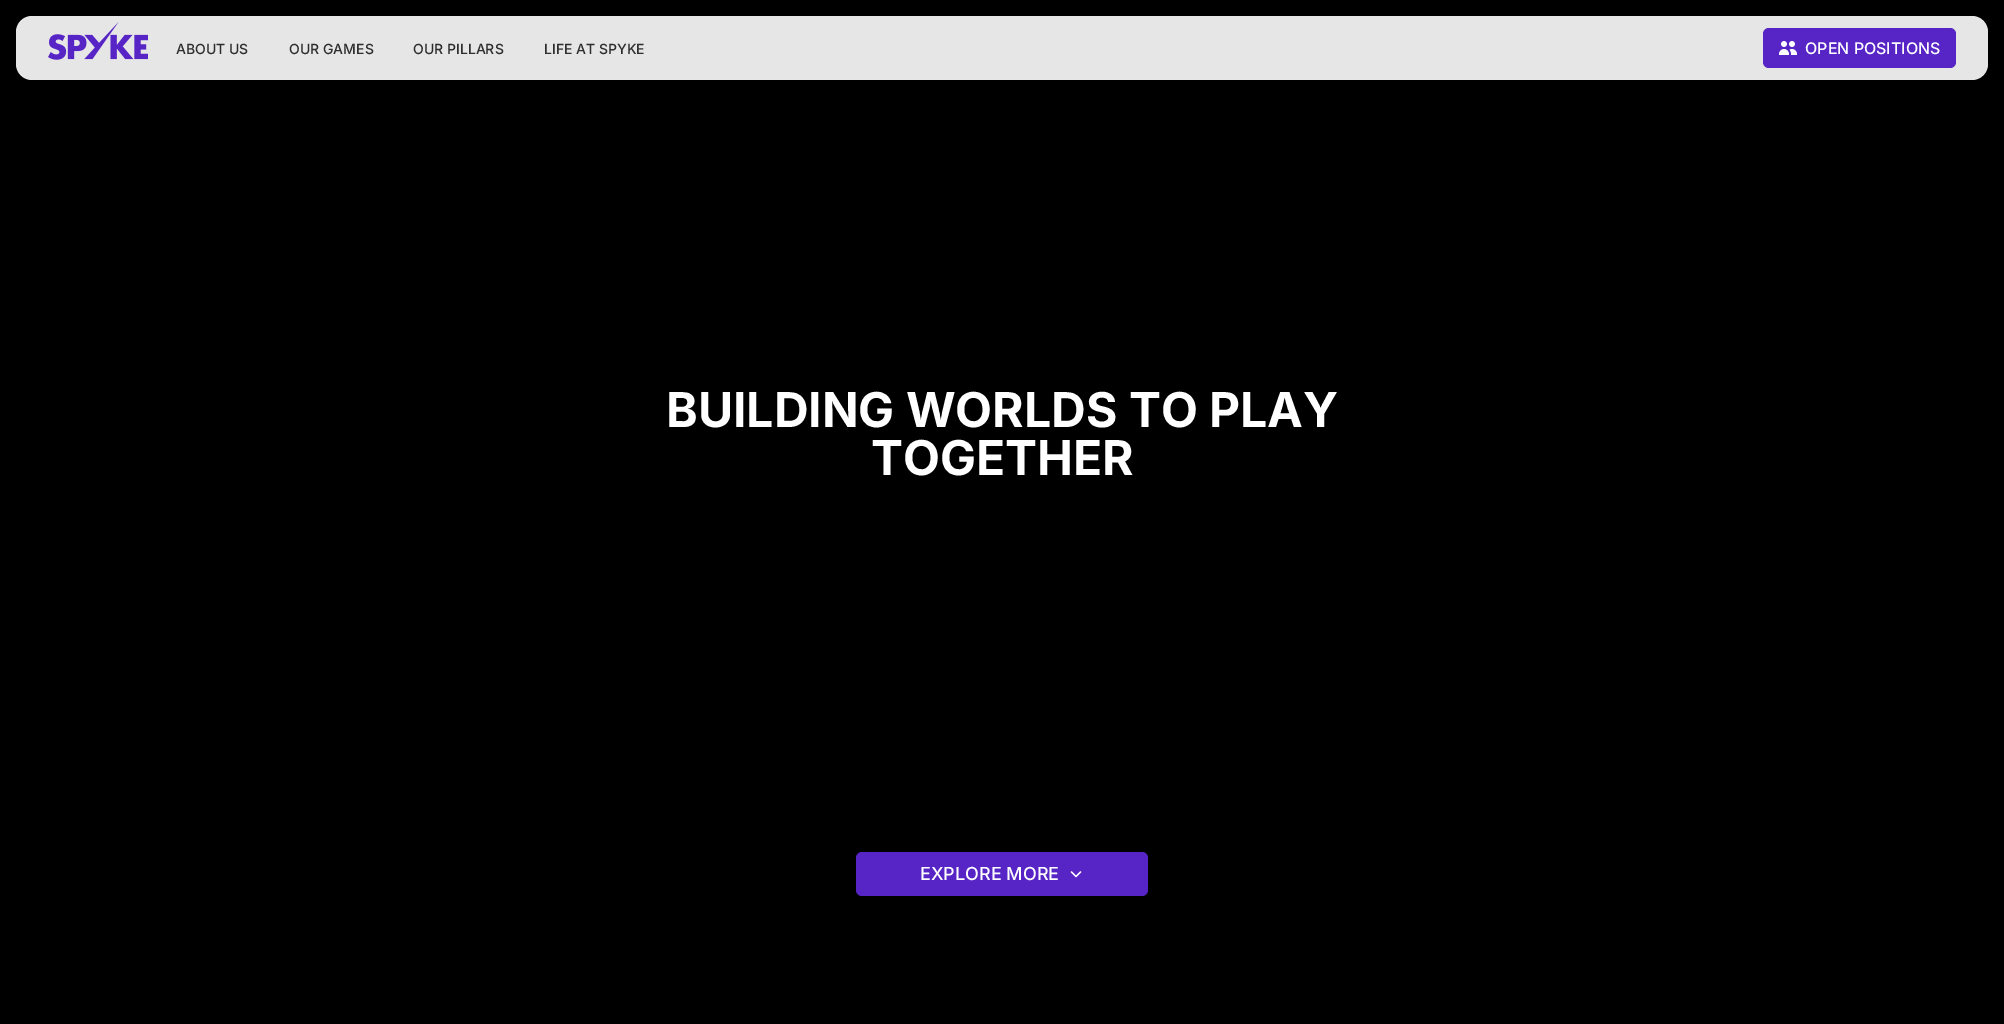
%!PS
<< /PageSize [2004 1024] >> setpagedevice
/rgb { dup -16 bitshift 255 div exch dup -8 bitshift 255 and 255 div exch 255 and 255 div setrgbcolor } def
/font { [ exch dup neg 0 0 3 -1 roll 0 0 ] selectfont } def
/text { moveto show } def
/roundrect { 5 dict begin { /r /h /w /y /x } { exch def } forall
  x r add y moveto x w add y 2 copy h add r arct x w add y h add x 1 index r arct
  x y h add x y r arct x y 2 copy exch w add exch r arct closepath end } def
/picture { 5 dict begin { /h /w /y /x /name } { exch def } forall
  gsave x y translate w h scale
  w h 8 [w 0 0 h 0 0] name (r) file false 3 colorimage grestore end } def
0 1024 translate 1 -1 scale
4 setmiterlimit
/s1 { /Inter-Medium 14 font 16#2E2E2E rgb } def
/s2 { /Inter-Medium 16 font 16#FFFFFF rgb } def
/s3 { /Inter-Bold 48 font 16#FFFFFF rgb } def
/s4 { /Inter-Medium 18 font 16#FFFFFF rgb } def
16#000000 rgb
0 0 2004 1024 rectfill
16#E6E6E6 rgb
16 16 1972 64 16 roundrect fill
(pic1.raw) 48 22 100 38 picture
s1
(ABOUT US) 176 54 text
(OUR GAMES) 289 54 text
(OUR PILLARS) 413 54 text
(LIFE AT SPYKE) 544 54 text
16#5724C5 rgb
1763 28 193 40 6 roundrect fill
(pic2.raw) 1779 41 18 14 picture
s2
(OPEN POSITIONS) 1805 54 text
s3
(BUILDING WORLDS TO PLAY) 666 427 text
(TOGETHER) 871 475 text
16#5724C5 rgb
856 852 292 44 6 roundrect fill
s4
(EXPLORE MORE) 920 880 text
1.3 setlinewidth
1 setlinecap
1 setlinejoin
1080.5 872 moveto 1076 876.5 lineto 1071.5 872 lineto stroke
showpage
